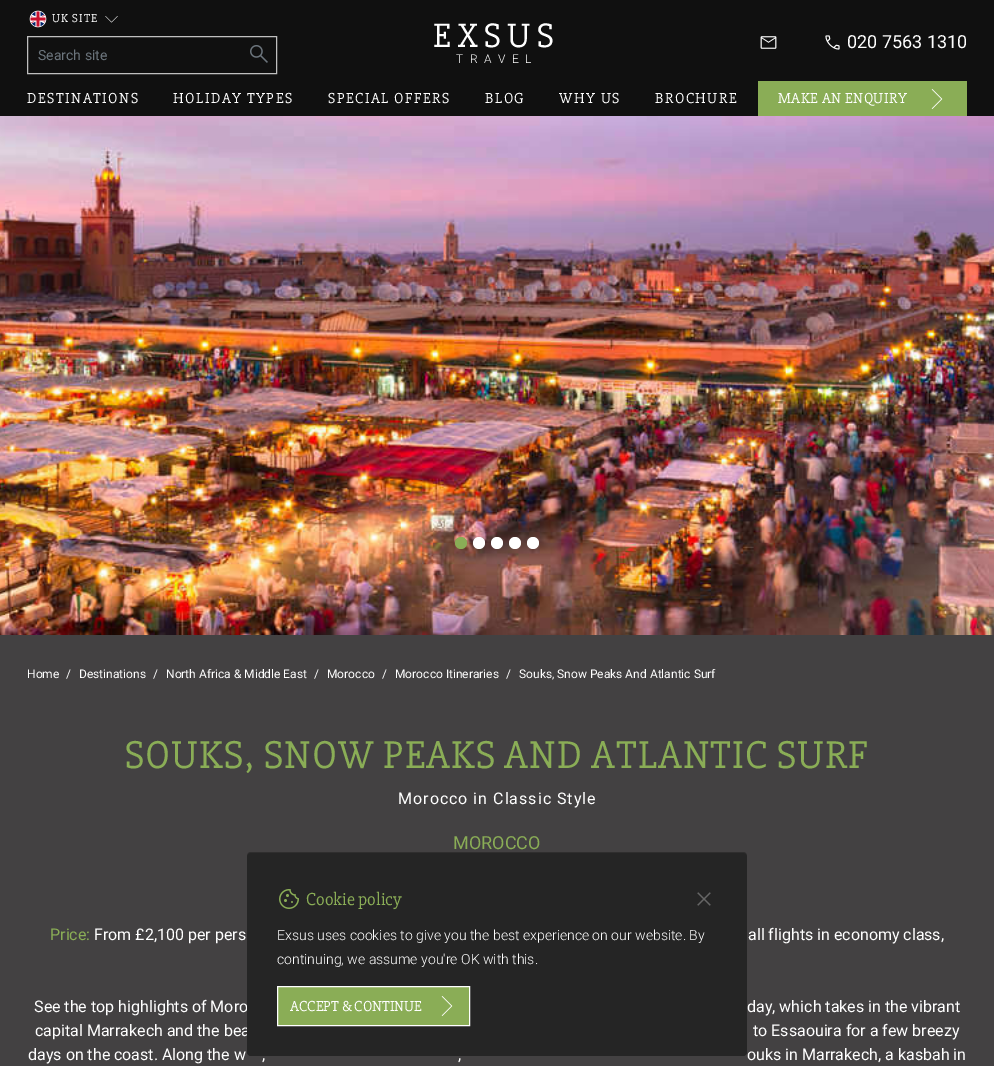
%!PS
<< /PageSize [994 1066] >> setpagedevice
/rgb { dup -16 bitshift 255 div exch dup -8 bitshift 255 and 255 div exch 255 and 255 div setrgbcolor } def
/font { [ exch dup neg 0 0 3 -1 roll 0 0 ] selectfont } def
/text { moveto show } def
/circle { newpath 0 360 arc closepath } def
/roundrect { 5 dict begin { /r /h /w /y /x } { exch def } forall
  x r add y moveto x w add y 2 copy h add r arct x w add y h add x 1 index r arct
  x y h add x y r arct x y 2 copy exch w add exch r arct closepath end } def
/picture { 5 dict begin { /h /w /y /x /name } { exch def } forall
  gsave x y translate w h scale
  w h 8 [w 0 0 h 0 0] name (r) file false 3 colorimage grestore end } def
0 1066 translate 1 -1 scale
4 setmiterlimit
/s1 { /Roboto-Regular 14 font 16#6C757D rgb } def
/s2 { /Roboto-Regular 18 font 16#FFFFFF rgb } def
/s3 { /Roboto-Regular 12 font 16#FFFFFF rgb } def
/s4 { /Roboto-Regular 18 font 16#8AAD56 rgb } def
/s5 { /Roboto-Regular 16 font 16#8AAD56 rgb } def
/s6 { /Roboto-Regular 16 font 16#FFFFFF rgb } def
/s7 { /Slabo27px-Regular 18 font 16#8AAD56 rgb } def
/s8 { /Roboto-Light 14 font 16#FFFFFF rgb } def
/s9 { /Slabo27px-Regular 15 font 16#FFFFFF rgb } def
16#434142 rgb
0 0 994 1066 rectfill
16#101010 rgb
0 0 994 116 rectfill
(pic1.raw) 29 10 18 18 picture
/Slabo27px-Regular 12 font
16#FFFFFF rgb
52 22 moveto 1 0 (UK SITE) ashow
(pic2.raw) 105 16 13 7 picture
16#BFBFBF rgb
27.5 36.5 249 37 rectstroke
s1
(Search site) 38 60 text
(pic3.raw) 250 45 18 18 picture
/Slabo27px-Regular 35 font
16#FFFFFF rgb
433 47 moveto 6.5 0 (EXSUS) ashow
/Roboto-Light 12 font
456 63 moveto 6.5 0 (TRAVEL) ashow
(pic4.raw) 760 36 17 13 picture
(pic5.raw) 825 35 15 15 picture
s2
(020 7563 1310) 847 48 text
/Slabo27px-Regular 15 font
27 103 moveto 1.5 0 (DESTINATIONS) ashow
173 103 moveto 1.5 0 (HOLIDAY TYPES) ashow
328 103 moveto 1.5 0 (SPECIAL OFFERS) ashow
485 103 moveto 1.5 0 (BLOG) ashow
559 103 moveto 1.5 0 (WHY US) ashow
655 103 moveto 1.5 0 (BROCHURE) ashow
16#8AAD56 rgb
758 81 209 35 rectfill
16#FFFFFF rgb
778 103 moveto 0.5 0 (MAKE AN ENQUIRY) ashow
(pic6.raw) 931 89 12 20 picture
(pic7.raw) 0 116 994 519 picture
16#8AAD56 rgb
461 543 6 circle fill
16#FFFFFF rgb
479 543 6 circle fill
497 543 6 circle fill
515 543 6 circle fill
533 543 6 circle fill
s3
(Home) 27 678 text
(/) 66 678 text
(Destinations) 79 678 text
(/) 153 678 text
(North Africa & Middle East) 166 678 text
(/) 314 678 text
(Morocco) 327 678 text
(/) 382 678 text
(Morocco Itineraries) 395 678 text
(/) 506 678 text
(Souks, Snow Peaks And Atlantic Surf) 519 678 text
/Slabo27px-Regular 40 font
16#8AAD56 rgb
125 768 moveto 1 0 (SOUKS, SNOW PEAKS AND ATLANTIC SURF) ashow
/Roboto-Regular 16 font
16#FFFFFF rgb
398 804 moveto 1 0 (Morocco in Classic Style) ashow
s4
(MOROCCO) 453 849 text
s5
(Price:) 50 940 text
s6
(From £2,100 per pers) 94 940 text
(all flights in economy class,) 748 940 text
(See the top highlights of Moro) 34 1012 text
(day, which takes in the vibrant) 747 1012 text
(capital Marrakech and the bea) 35 1036 text
(to Essaouira for a few breezy) 753 1036 text
(days on the coast. Along the w) 28 1060 text
(,) 262 1060 text
(,) 458 1060 text
(ouks in Marrakech, a kasbah in) 747 1060 text
16#2F2E2E rgb
251 852 moveto 248 852 247 854 247 857 curveto 247 855 249 853 251 853 curveto 743 853 lineto 745 853 747 855 747 857 curveto 747 854 746 852 743 852 curveto closepath fill
16#252525 rgb
247 853 500 203 4 roundrect fill
(pic8.raw) 279 889 20 20 picture
s7
(Cookie policy) 306 905 text
(pic9.raw) 697 892 14 14 picture
s8
(Exsus uses cookies to give you the best experience on our website. By) 277 940 text
(continuing, we assume you're OK with this.) 277 964 text
16#8AAD56 rgb
277.5 986.5 moveto 469.5 986.5 lineto 469.5 1025.5 lineto 277.5 1025.5 lineto closepath gsave fill grestore
16#FFFFFF rgb
stroke
s9
(ACCEPT & CONTINUE) 290 1011 text
(pic6.raw) 441 996 12 20 picture
showpage
